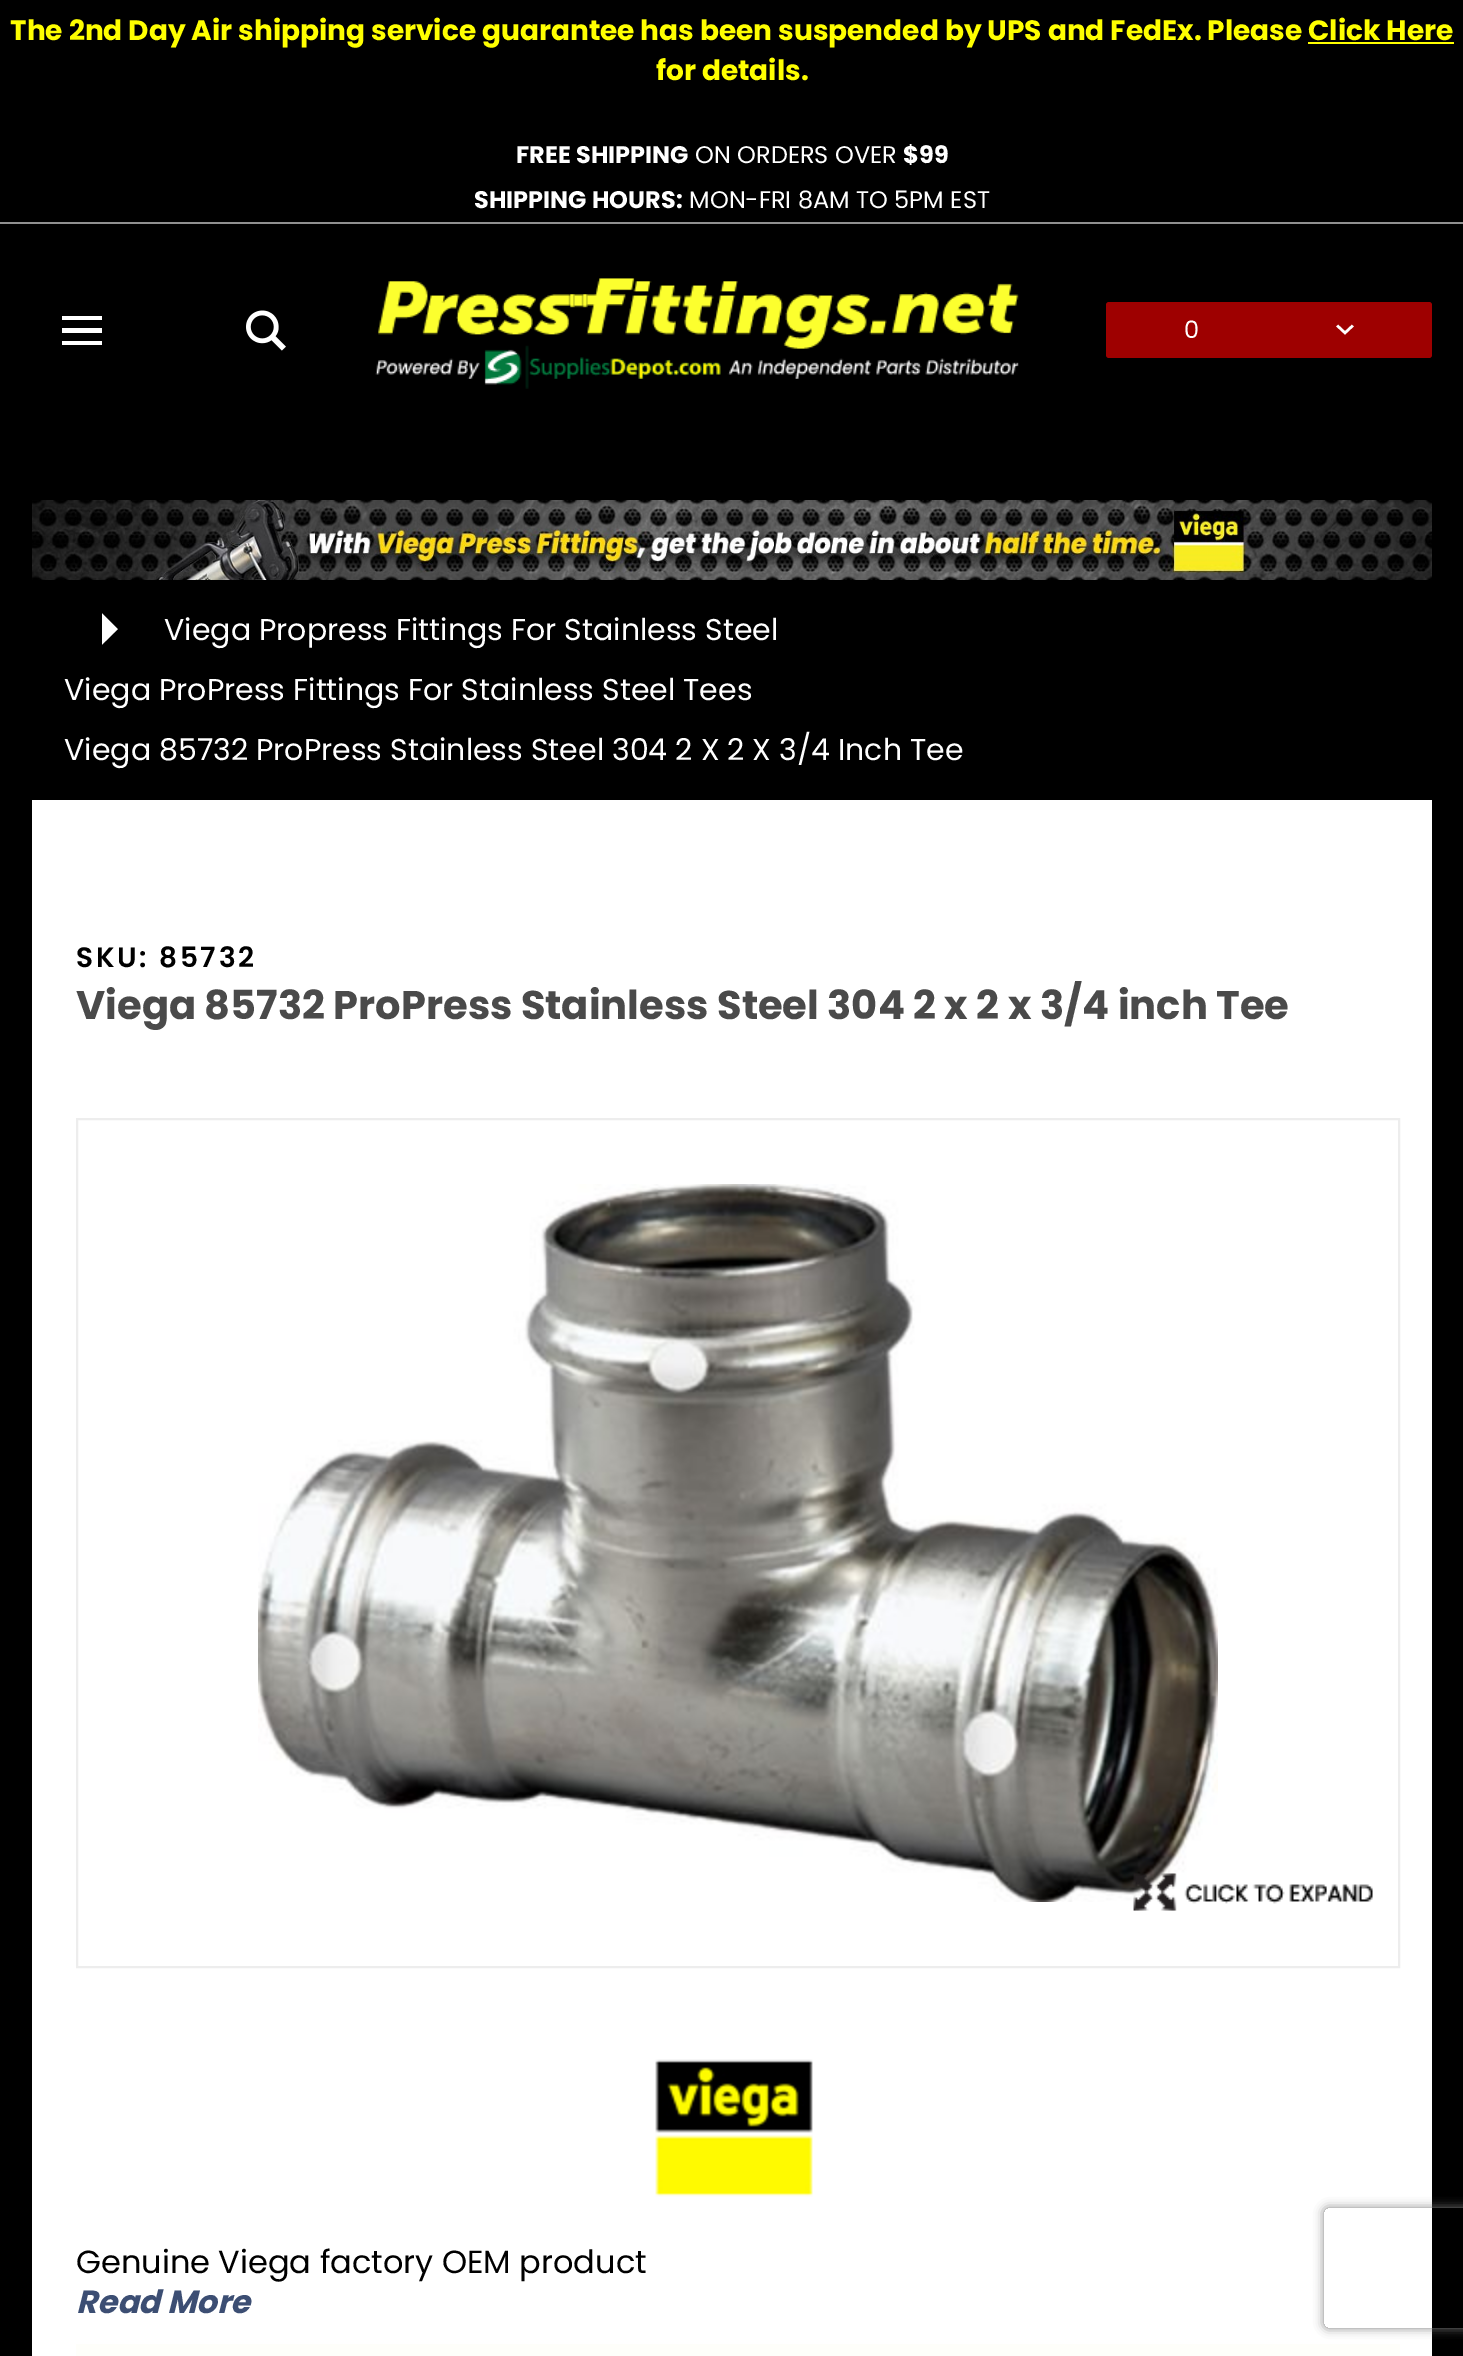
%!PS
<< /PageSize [1463 2356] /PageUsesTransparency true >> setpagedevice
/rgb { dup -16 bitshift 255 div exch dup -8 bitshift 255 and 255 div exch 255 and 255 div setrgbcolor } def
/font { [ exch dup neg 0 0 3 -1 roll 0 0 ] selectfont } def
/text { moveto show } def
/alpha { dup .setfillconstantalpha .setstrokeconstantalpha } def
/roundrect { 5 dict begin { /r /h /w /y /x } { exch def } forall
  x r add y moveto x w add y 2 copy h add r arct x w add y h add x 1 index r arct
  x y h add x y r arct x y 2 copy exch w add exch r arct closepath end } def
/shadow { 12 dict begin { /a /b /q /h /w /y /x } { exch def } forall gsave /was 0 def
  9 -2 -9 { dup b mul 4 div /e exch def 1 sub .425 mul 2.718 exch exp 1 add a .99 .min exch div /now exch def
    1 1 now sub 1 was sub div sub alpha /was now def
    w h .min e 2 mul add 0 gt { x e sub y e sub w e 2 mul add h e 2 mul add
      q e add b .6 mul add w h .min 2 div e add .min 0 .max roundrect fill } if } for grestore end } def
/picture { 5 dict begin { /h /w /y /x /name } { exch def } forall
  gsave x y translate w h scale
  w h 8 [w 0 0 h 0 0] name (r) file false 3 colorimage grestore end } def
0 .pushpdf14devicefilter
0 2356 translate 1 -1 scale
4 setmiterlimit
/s1 { /Poppins-Bold 28 font 16#FFFF00 rgb } def
/s2 { /Poppins-Bold 24 font 16#FFFFFF rgb } def
/s3 { /Poppins-Regular 24 font 16#FFFFFF rgb } def
/s4 { /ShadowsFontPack-Regular 18 font 16#FFFFFF rgb } def
/s5 { /Poppins-Regular 30 font 16#FFFFFF rgb } def
/s6 { /Poppins-Bold 40 font 16#4A4A4A rgb } def
/s7 { /Poppins-Regular 32 font 16#000000 rgb } def
/s8 { /Poppins-BoldItalic 32 font 16#3C4E73 rgb } def
16#000000 rgb
0 0 1463 2356 rectfill
s1
(The 2nd Day Air shipping service guarantee has been suspended by UPS and FedEx. Please Click Here) 10 40 text
1308 42 146 2 rectfill
(for details.) 656 80 text
16#909090 rgb
0 222 1463 2 rectfill
s2
(FREE SHIPPING) 516 163 text
s3
(ON ORDERS OVER) 695 163 text
s2
($99) 903 163 text
(SHIPPING HOURS:) 474 208 text
s3
(MON-FRI 8AM TO 5PM EST) 689 208 text
62 341 moveto 62 345 lineto 102 345 lineto 102 341 lineto closepath 62 328 moveto 62 333 lineto 102 333 lineto 102 328 lineto closepath 62 316 moveto 62 320 lineto 102 320 lineto 102 316 lineto closepath fill
(pic1.raw) 246 310 40 41 picture
(pic2.raw) 375 278 644 111 picture
16#9E0000 rgb
1106 302 326 56 3 roundrect fill
s3
(0) 1184 338 text
s4
(1) 1336 337 text
(pic3.raw) 32 500 1400 80 picture
/ShadowsFontPack-Regular 32 font
94 643 moveto 2 0 (7) ashow
s5
(Viega Propress Fittings For Stainless Steel) 164 640 text
(Viega ProPress Fittings For Stainless Steel Tees) 64 700 text
(Viega 85732 ProPress Stainless Steel 304 2 X 2 X 3/4 Inch Tee) 64 760 text
32 800 1400 1556 rectfill
/Poppins-SemiBold 28 font
16#000000 rgb
76 967 moveto 2.75 0 (SKU: 85732) ashow
s6
(Viega 85732 ProPress Stainless Steel 304 2 x 2 x 3/4 inch Tee) 76 1019 text
16#EDEDED rgb
2 setlinewidth
77 1119 1322 848 rectstroke
(pic4.raw) 258 1184 960 718 picture
(pic5.raw) 1133 1873 240 38 picture
(pic6.raw) 655 2059 158 138 picture
s7
(Genuine Viega factory OEM product) 76 2273 text
s8
(Read More) 76 2313 text
16#FEFEFA rgb
76 2344 1324 12 rectfill
gsave
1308 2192 moveto 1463 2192 lineto 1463 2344 lineto 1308 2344 lineto closepath 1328 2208 moveto 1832 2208 lineto 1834 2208 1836 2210 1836 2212 curveto 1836 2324 lineto 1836 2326 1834 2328 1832 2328 curveto 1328 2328 lineto 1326 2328 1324 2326 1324 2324 curveto 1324 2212 lineto 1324 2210 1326 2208 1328 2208 curveto closepath eoclip newpath
16#808080 rgb
1324 2208 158 120 4 5 1 shadow
grestore
.poppdf14devicefilter showpage
